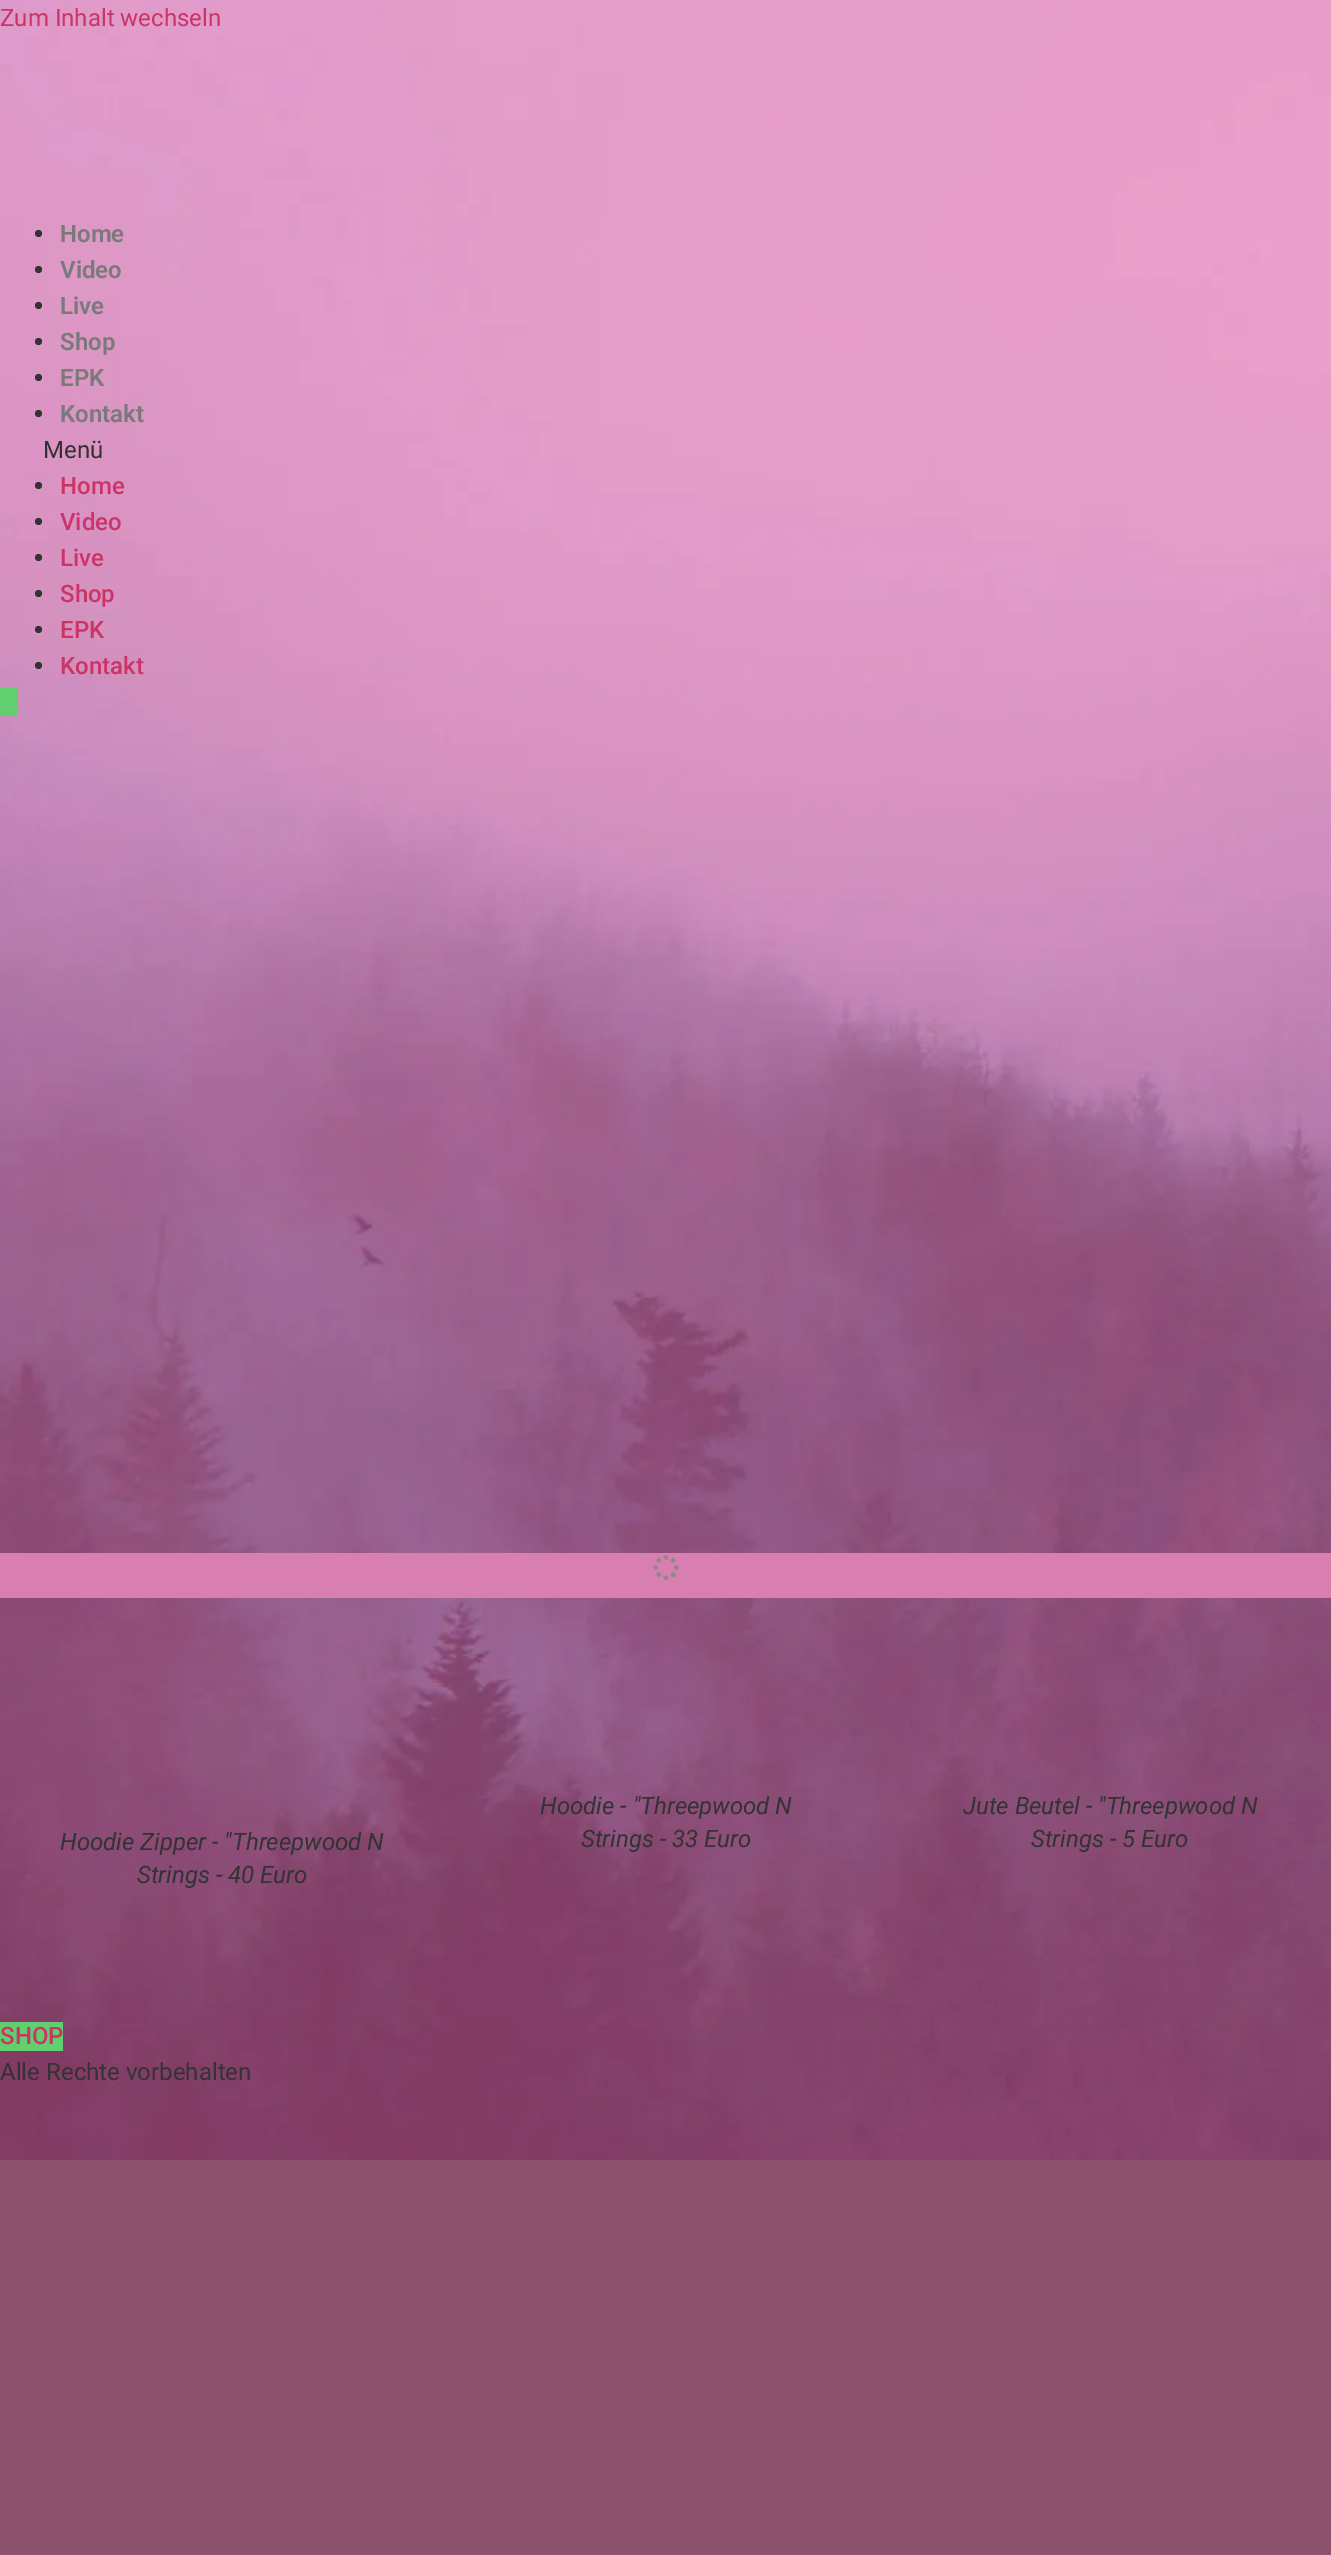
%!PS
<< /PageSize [1331 2555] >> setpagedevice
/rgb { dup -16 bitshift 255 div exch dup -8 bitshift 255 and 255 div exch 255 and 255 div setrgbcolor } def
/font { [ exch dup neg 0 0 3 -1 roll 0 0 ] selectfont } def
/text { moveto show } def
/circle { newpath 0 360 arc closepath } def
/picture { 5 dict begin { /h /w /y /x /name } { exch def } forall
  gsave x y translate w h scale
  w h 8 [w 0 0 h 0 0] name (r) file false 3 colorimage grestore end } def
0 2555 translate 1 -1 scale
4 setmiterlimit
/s1 { /Roboto-Regular 24 font 16#CC3366 rgb } def
/s2 { /Roboto-SemiBold 24 font 16#7A7A7A rgb } def
/s3 { /Roboto-Regular 24 font 16#333333 rgb } def
/s4 { /Roboto-Medium 24 font 16#CC3366 rgb } def
/s5 { /Roboto-Italic 24 font 16#333333 rgb } def
16#8C516D rgb
0 0 1331 2555 rectfill
(pic1.raw) 0 0 1331 2160 picture
s1
(Zum Inhalt wechseln) 0 26 text
16#333333 rgb
38.5 233.5 3.5 circle fill
s2
(Home) 60 242 text
16#333333 rgb
38.5 269.5 3.5 circle fill
s2
(Video) 60 278 text
16#333333 rgb
38.5 305.5 3.5 circle fill
s2
(Live) 60 314 text
16#333333 rgb
38.5 341.5 3.5 circle fill
s2
(Shop) 60 350 text
16#333333 rgb
38.5 377.5 3.5 circle fill
s2
(EPK) 60 386 text
16#333333 rgb
38.5 413.5 3.5 circle fill
s2
(Kontakt) 60 422 text
s3
(Menü) 43 458 text
38.5 485.5 3.5 circle fill
s4
(Home) 60 494 text
16#333333 rgb
38.5 521.5 3.5 circle fill
s4
(Video) 60 530 text
16#333333 rgb
38.5 557.5 3.5 circle fill
s4
(Live) 60 566 text
16#333333 rgb
38.5 593.5 3.5 circle fill
s4
(Shop) 60 602 text
16#333333 rgb
38.5 629.5 3.5 circle fill
s4
(EPK) 60 638 text
16#333333 rgb
38.5 665.5 3.5 circle fill
s4
(Kontakt) 60 674 text
16#61CE70 rgb
0 687 18 29 rectfill
16#D97EB0 rgb
0 1553 1331 45 rectfill
(pic2.raw) 653 1555 26 25 picture
s5
(Hoodie - "Threepwood N) 540 1814 text
(Strings - 33 Euro) 581 1847 text
(Jute Beutel - "Threepwood N) 963 1814 text
(Strings - 5 Euro) 1031 1847 text
(Hoodie Zipper - "Threepwood N) 60 1850 text
(Strings - 40 Euro) 137 1883 text
16#61CE70 rgb
0 2022 63 29 rectfill
s4
(SHOP) 0 2044 text
s3
(Alle Rechte vorbehalten) 0 2080 text
showpage
